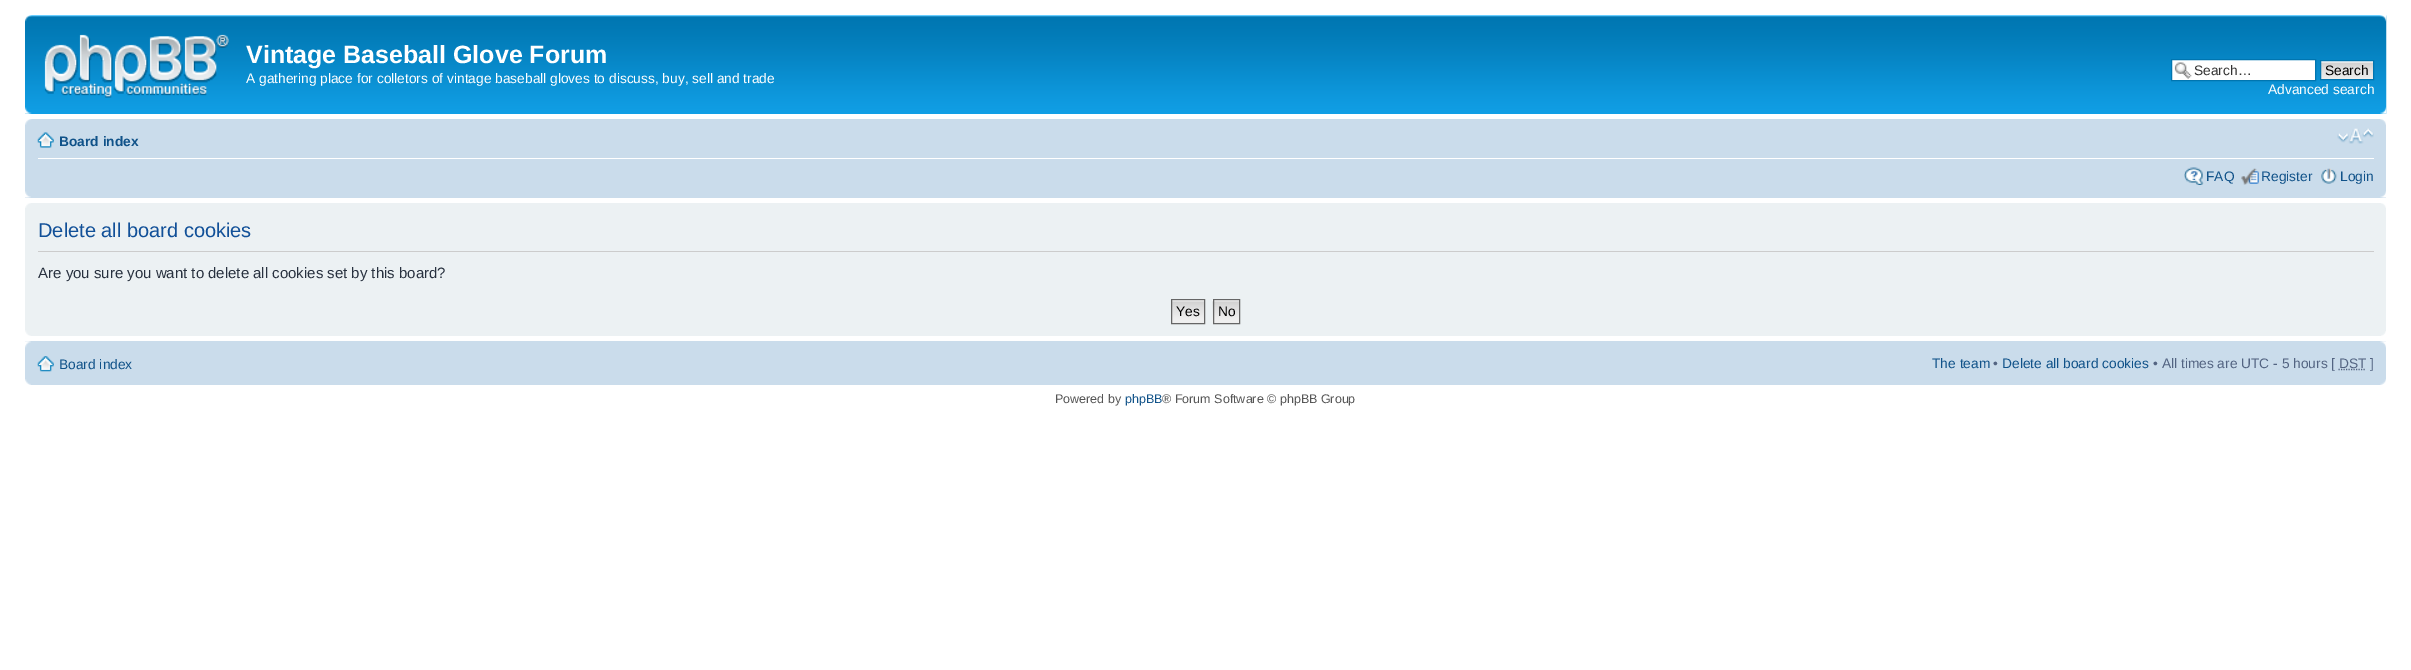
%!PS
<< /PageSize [2411 670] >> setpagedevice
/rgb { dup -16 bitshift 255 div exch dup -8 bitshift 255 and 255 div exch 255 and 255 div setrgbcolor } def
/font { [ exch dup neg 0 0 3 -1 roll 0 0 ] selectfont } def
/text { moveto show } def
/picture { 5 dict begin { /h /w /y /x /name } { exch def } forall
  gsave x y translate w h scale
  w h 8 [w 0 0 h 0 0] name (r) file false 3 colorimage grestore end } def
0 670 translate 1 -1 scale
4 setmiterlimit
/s1 { /LiberationSans-Bold 25 font 16#FFFFFF rgb } def
/s2 { /LiberationSans-Regular 13.75 font 16#FFFFFF rgb } def
/s3 { /LiberationSans-Regular 13.75 font 16#333333 rgb } def
/s4 { /LiberationSans-Regular 13.75 font 16#000000 rgb } def
/s5 { /LiberationSans-Bold 13.75 font 16#105289 rgb } def
/s6 { /LiberationSans-Regular 13.75 font 16#105289 rgb } def
/s7 { /LiberationSans-Regular 20 font 16#115098 rgb } def
/s8 { /LiberationSans-Regular 15 font 16#28313F rgb } def
/s9 { /LiberationSans-Regular 13.75 font 16#536482 rgb } def
/s10 { /LiberationSans-Regular 12.5 font 16#555555 rgb } def
/s11 { /LiberationSans-Regular 12.5 font 16#105289 rgb } def
16#FFFFFF rgb
0 0 2411 670 rectfill
(pic1.raw) 25 15 2362 99 picture
(pic2.raw) 25 15 7 7 picture
(pic3.raw) 2379 15 8 7 picture
(pic4.raw) 44 34 185 64 picture
s1
(Vintage Baseball Glove Forum) 246 63 text
s2
(A gathering place for colletors of vintage baseball gloves to discuss, buy, sell and trade) 246 83 text
2172 60 143 20 rectfill
(pic5.raw) 2174 62 18 17 picture
16#0075B0 rgb
2171.5 59.5 144 21 rectstroke
s3
(Search…) 2194 75 text
16#FAFAFA rgb
2321 61 52 1 rectfill
(pic6.raw) 2321 62 52 17 picture
16#0075B0 rgb
2320.5 60.5 53 19 rectstroke
s4
(Search) 2325 75 text
s2
(Advanced search) 2268 94 text
(pic7.raw) 25 107 7 7 picture
(pic8.raw) 2380 107 7 7 picture
16#CADCEB rgb
25 119 2361 79 rectfill
(pic9.raw) 25 119 7 6 picture
(pic10.raw) 2380 119 6 6 picture
16#FFFFFF rgb
38 158 2336 1 rectfill
(pic11.raw) 37 132 17 16 picture
s5
(Board index) 59 146 text
(pic12.raw) 2337 128 37 16 picture
(pic13.raw) 2184 167 20 18 picture
s6
(FAQ) 2206 181 text
(pic14.raw) 2241 168 18 17 picture
(Register) 2261 181 text
(pic15.raw) 2321 168 16 16 picture
(Login) 2340 181 text
(pic16.raw) 25 191 6 7 picture
(pic17.raw) 2380 191 6 7 picture
16#ECF1F3 rgb
25 203 2361 133 rectfill
(pic18.raw) 25 203 6 5 picture
(pic19.raw) 2381 203 5 5 picture
16#CCCCCC rgb
38 251 2336 1 rectfill
s7
(Delete all board cookies) 38 237 text
s8
(Are you sure you want to delete all cookies set by this board?) 38 278 text
(pic20.raw) 1172 300 32 23 picture
16#666666 rgb
1171.5 299.5 33 24 rectstroke
s4
(Yes) 1176 316 text
(pic21.raw) 1212 300 27 24 picture
16#666666 rgb
1213.5 299.5 26 24 rectstroke
s4
(No) 1218 316 text
(pic22.raw) 25 330 6 6 picture
(pic23.raw) 2381 331 5 5 picture
16#CADCEB rgb
25 341 2361 44 rectfill
(pic24.raw) 25 341 6 7 picture
(pic25.raw) 2380 341 6 7 picture
(pic26.raw) 37 356 17 16 picture
s6
(Board index) 59 369 text
(The team) 1932 368 text
s9
(•) 1993 368 text
s6
(Delete all board cookies) 2002 368 text
s9
(• All times are UTC - 5 hours [) 2153 368 text
1.2 setlinewidth
[1.25 1.25] 0 setdash
2338.5 369.5 moveto 2366 369.5 lineto stroke
(DST ]) 2339 368 text
(pic27.raw) 25 379 6 6 picture
(pic28.raw) 2380 379 6 6 picture
s10
(Powered by) 1055 403 text
s11
(phpBB) 1125 403 text
s10
(® Forum Software © phpBB Group) 1162 403 text
showpage
